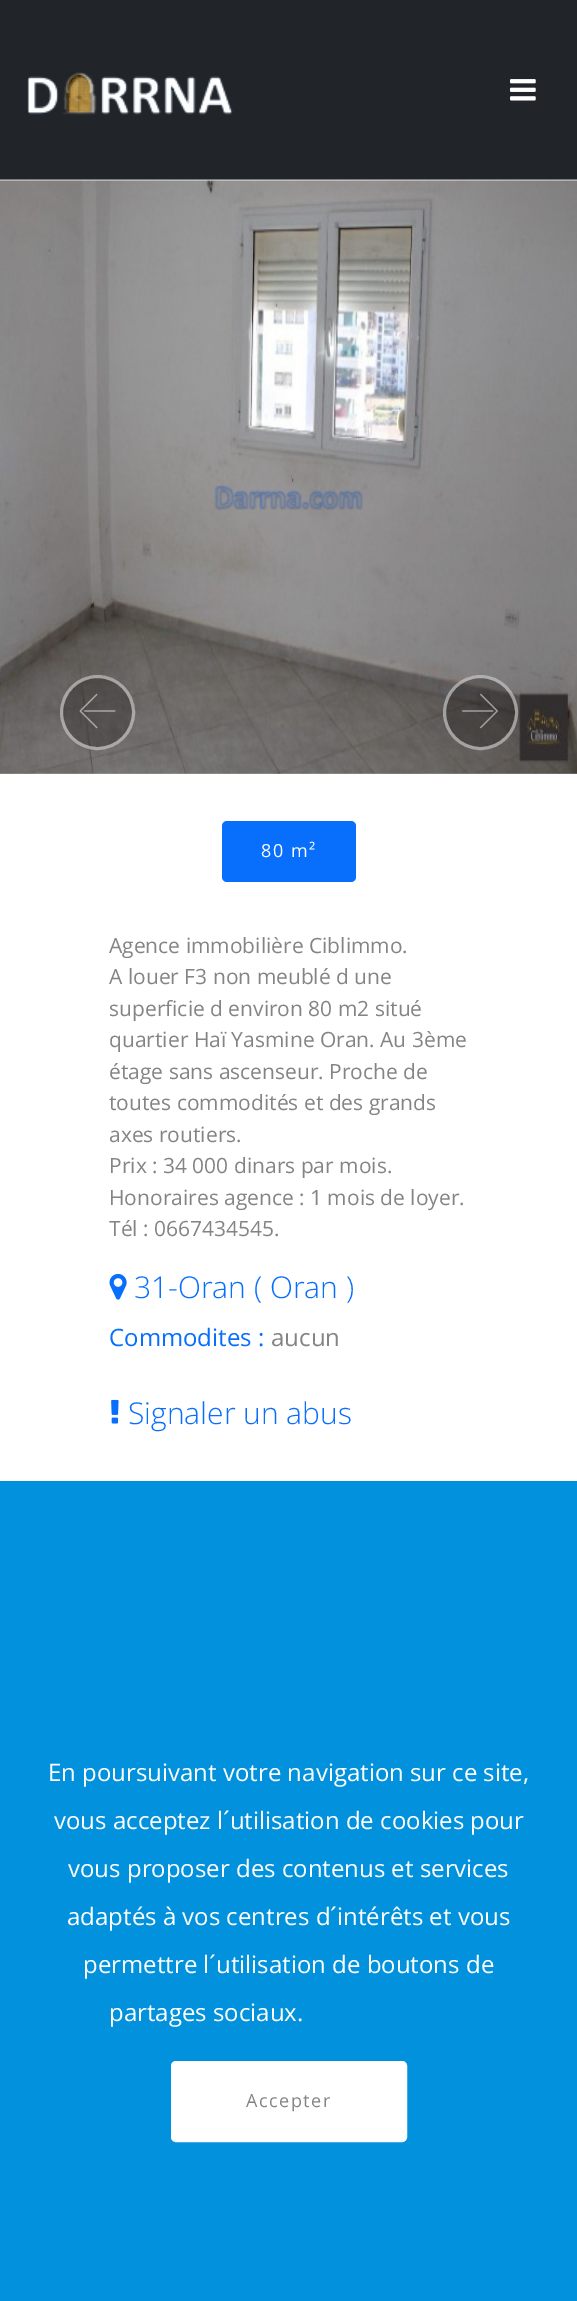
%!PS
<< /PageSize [577 2301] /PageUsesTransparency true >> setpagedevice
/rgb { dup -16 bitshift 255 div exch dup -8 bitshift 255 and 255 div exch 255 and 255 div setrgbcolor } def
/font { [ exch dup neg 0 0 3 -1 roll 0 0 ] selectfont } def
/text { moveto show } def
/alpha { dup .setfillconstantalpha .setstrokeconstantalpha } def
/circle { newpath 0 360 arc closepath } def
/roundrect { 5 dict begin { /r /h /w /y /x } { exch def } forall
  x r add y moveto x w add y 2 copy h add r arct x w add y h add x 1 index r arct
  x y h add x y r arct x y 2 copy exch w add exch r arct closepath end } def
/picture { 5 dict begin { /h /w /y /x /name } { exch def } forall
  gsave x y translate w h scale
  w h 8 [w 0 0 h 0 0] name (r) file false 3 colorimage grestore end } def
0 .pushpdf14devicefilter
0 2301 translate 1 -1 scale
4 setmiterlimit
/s1 { /OpenSans-Regular 21 font 16#848484 rgb } def
/s2 { /OpenSans-Light 30 font 16#086FFC rgb } def
/s3 { /OpenSans-Regular 24 font 16#086FFC rgb } def
/s4 { /OpenSans-Regular 24 font 16#848484 rgb } def
/s5 { /OpenSans-Regular 24 font 16#FFFFFF rgb } def
16#FFFFFF rgb
0 0 577 2301 rectfill
16#212529 rgb
0 0 577 180 rectfill
(pic3.raw) 0 180 577 594 picture
0.4 alpha
16#FFFFFF rgb
0 179 577 2 rectfill
1 alpha
(pic1.raw) 27 71 206 44 picture
(pic2.raw) 510 79 26 22 picture
(pic4.raw) 214 485 149 25 picture
0.25 alpha
16#000000 rgb
97.5 712.5 37.5 circle fill
0.5 alpha
16#FFFFFF rgb
3 setlinewidth
97.5 712.5 36 circle stroke
1 alpha
(pic5.raw) 79 693 37 36 picture
0.25 alpha
16#000000 rgb
480.5 712.5 37.5 circle fill
0.5 alpha
16#FFFFFF rgb
480.5 712.5 36 circle stroke
1 alpha
(pic6.raw) 462 693 36 36 picture
16#086FFC rgb
222 821 134 61 5 roundrect fill
/OpenSans-Regular 18 font
16#FFFFFF rgb
261 857 moveto 1.5 0 (80 m²) ashow
s1
(Agence immobilière Ciblimmo.) 109 953 text
(A louer F3 non meublé d une) 109 984 text
(superficie d environ 80 m2 situé) 109 1016 text
(quartier Haï Yasmine Oran. Au 3ème) 109 1047 text
(étage sans ascenseur. Proche de) 109 1079 text
(toutes commodités et des grands) 109 1110 text
(axes routiers.) 109 1142 text
(Prix : 34 000 dinars par mois.) 109 1173 text
(Honoraires agence : 1 mois de loyer.) 109 1205 text
(Tél : 0667434545.) 109 1236 text
(pic7.raw) 109 1273 18 27 picture
s2
(31-Oran \( Oran \)) 134 1298 text
s3
(Commodites :) 109 1346 text
s4
(aucun) 271 1346 text
(pic8.raw) 111 1399 8 25 picture
s2
(Signaler un abus) 128 1424 text
16#0291DC rgb
0 1481 577 820 rectfill
s5
(En poursuivant votre navigation sur ce site,) 48 1781 text
(vous acceptez l´utilisation de cookies pour) 54 1829 text
(vous proposer des contenus et services) 68 1877 text
(adaptés à vos centres d´intérêts et vous) 67 1925 text
(permettre l´utilisation de boutons de) 83 1973 text
(partages sociaux.) 109 2021 text
172.5 2062.5 233 78 3.5 roundrect gsave fill grestore
stroke
/OpenSans-Regular 18 font
16#848484 rgb
246 2107 moveto 1.5 0 (Accepter) ashow
.poppdf14devicefilter showpage
